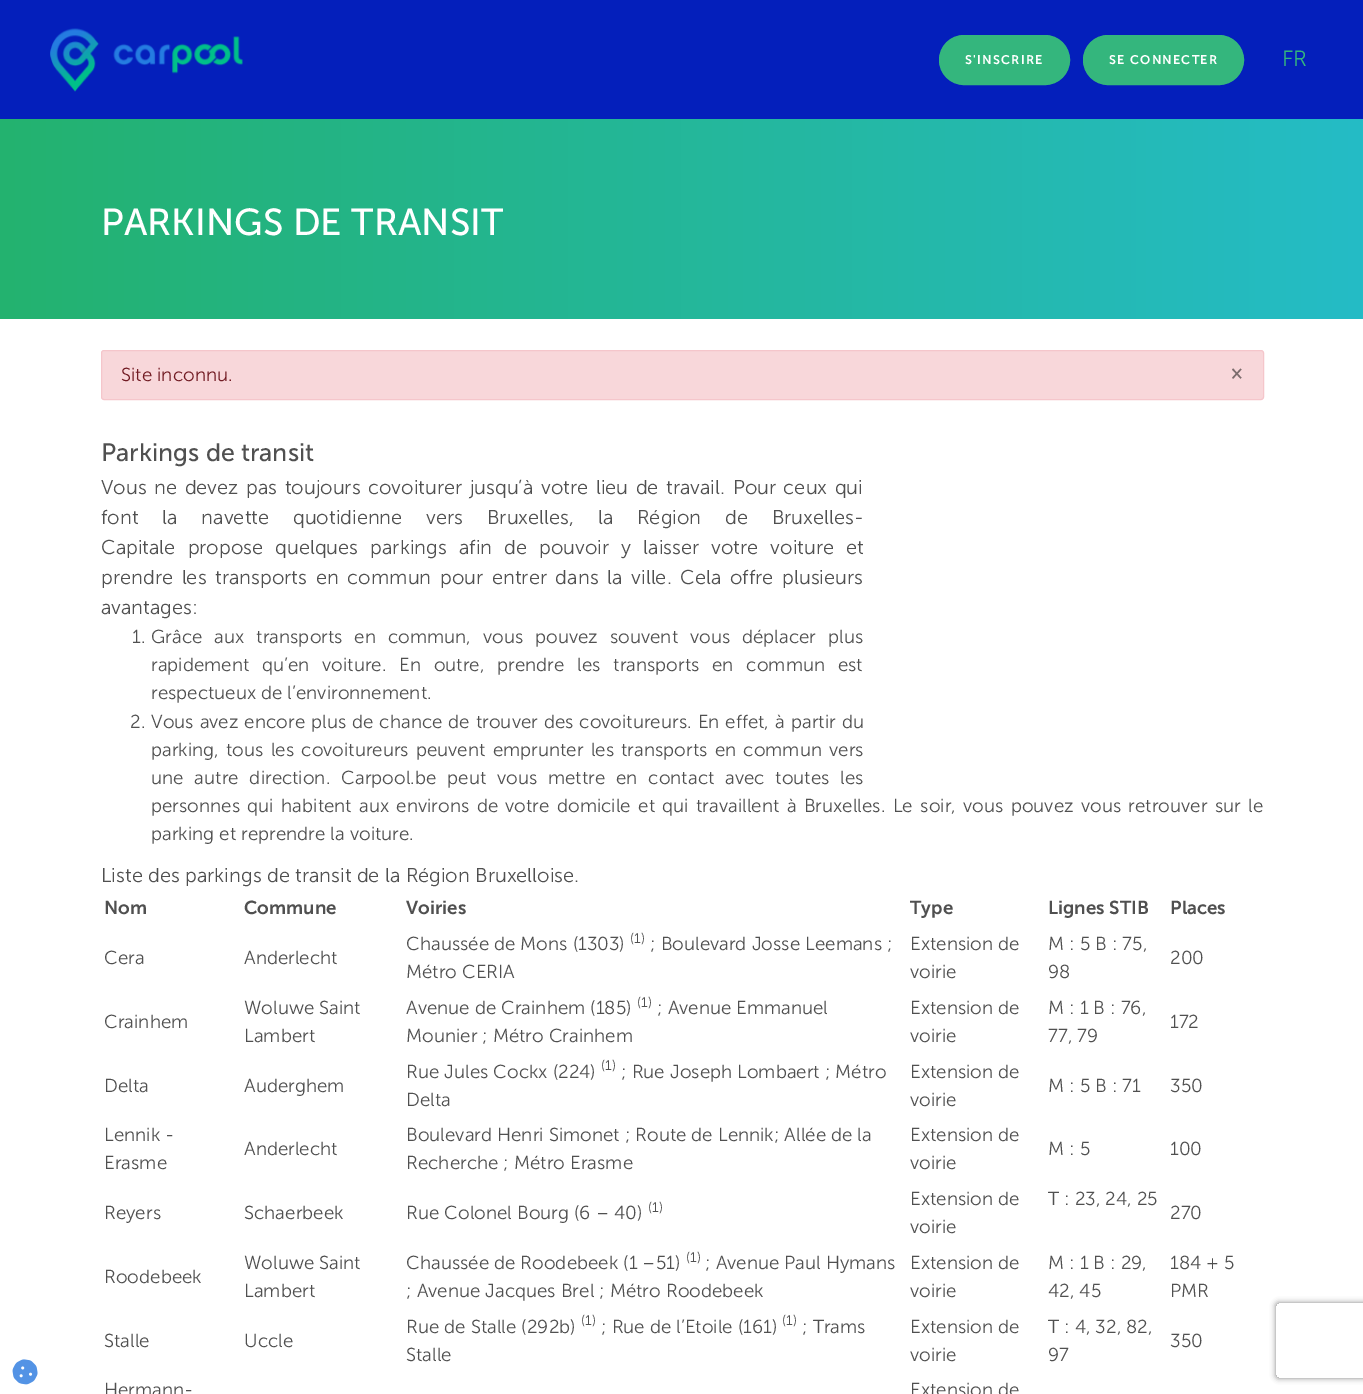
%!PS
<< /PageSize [1363 1394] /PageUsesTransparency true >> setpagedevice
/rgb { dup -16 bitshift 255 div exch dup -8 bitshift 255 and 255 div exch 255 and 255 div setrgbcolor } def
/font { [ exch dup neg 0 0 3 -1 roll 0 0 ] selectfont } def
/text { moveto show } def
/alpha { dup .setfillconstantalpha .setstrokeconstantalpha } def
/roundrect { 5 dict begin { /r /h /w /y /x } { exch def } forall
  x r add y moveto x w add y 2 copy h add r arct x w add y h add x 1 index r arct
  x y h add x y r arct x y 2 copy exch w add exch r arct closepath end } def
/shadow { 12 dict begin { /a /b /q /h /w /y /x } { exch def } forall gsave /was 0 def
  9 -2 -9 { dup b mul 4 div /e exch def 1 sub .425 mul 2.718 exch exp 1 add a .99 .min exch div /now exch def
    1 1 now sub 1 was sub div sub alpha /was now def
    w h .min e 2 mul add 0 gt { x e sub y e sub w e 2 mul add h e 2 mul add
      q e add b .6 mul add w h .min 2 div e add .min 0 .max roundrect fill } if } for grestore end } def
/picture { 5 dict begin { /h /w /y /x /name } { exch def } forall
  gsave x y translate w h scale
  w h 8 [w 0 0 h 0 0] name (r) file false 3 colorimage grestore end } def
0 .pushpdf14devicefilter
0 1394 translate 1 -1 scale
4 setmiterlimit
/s1 { /MuseoSans-Light 22 font 16#34B67D rgb } def
/s2 { /MuseoSans-Regular 37.5 font 16#FFFFFF rgb } def
/s3 { /MuseoSans-Light 18.75 font 16#721C24 rgb } def
/s4 { /MuseoSans-SemiBold 18.75 font 16#7C6C6D rgb } def
/s5 { /MuseoSans-Regular 25 font 16#505050 rgb } def
/s6 { /MuseoSans-Light 20 font 16#505050 rgb } def
/s7 { /MuseoSans-Light 18.75 font 16#505050 rgb } def
/s8 { /MuseoSans-SemiBold 18.75 font 16#505050 rgb } def
/s9 { /MuseoSans-Light 14 font 16#505050 rgb } def
16#FFFFFF rgb
0 0 1363 1394 rectfill
16#041FBB rgb
0 0 1363 119 rectfill
(pic1.raw) 50 28 193 64 picture
16#34B67D rgb
939.5 35.5 130 49 24.5 roundrect gsave fill grestore
stroke
/MuseoSans-SemiBold 12.5 font
16#FFFFFF rgb
965 64 moveto 1.25 0 (S'INSCRIRE) ashow
16#34B67D rgb
1083.5 35.5 160 49 24.5 roundrect gsave fill grestore
stroke
16#FFFFFF rgb
1109 64 moveto 1.25 0 (SE CONNECTER) ashow
s1
(FR) 1282 66 text
gsave 0 119 moveto 1363 119 lineto 1363 319 lineto 0 319 lineto closepath clip newpath
<< /ShadingType 2 /ColorSpace /DeviceRGB /Coords [0 219 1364 219] /Extend [true true] /Function << /FunctionType 2 /Domain [0 1] /C0 [0.137 0.698 0.435] /C1 [0.145 0.737 0.776] /N 1 >> >> shfill grestore
s2
(PARKINGS DE TRANSIT) 101 235 text
(pic2.raw) 12 1359 26 26 picture
16#F8D7DA rgb
101.5 350.5 1162 49 2.5 roundrect gsave fill grestore
16#F5C6CB rgb
stroke
s3
(Site inconnu.) 121 381 text
s4
(×) 1231 379 text
s5
(Parkings de transit) 101 461 text
/MuseoSans-Light 20 font
101 494 moveto 2.25 0 32 (Vous ne devez pas toujours covoiturer jusqu’à) widthshow
541 494 moveto 2.25 0 32 (votre lieu de travail. Pour ceux qui) widthshow
101 524 moveto 18.5 0 32 (font la navette quotidienne vers Bruxelles, la Région de Bruxelles-) widthshow
101 554 moveto 6.75 0 32 (Capitale propose quelques parkings afin de pouvoir y laisser votre voiture et) widthshow
101 584 moveto 3.4 0 32 (prendre les transports en commun pour entrer dans la ville. Cela offre plusieurs) widthshow
(avantages:) 101 614 text
s7
(1.) 132 643 text
151 643 moveto 7 0 32 (Grâce aux transports en commun, vous pouvez souvent vous déplacer plus) widthshow
151 671 moveto 7.75 0 32 (rapidement qu’en voiture. En outre, prendre les transports en commun est) widthshow
(respectueux de l’environnement.) 151 699 text
(2.) 130 728 text
151 728 moveto 1 0 32 (Vous avez encore plus de chance de trouver des covoitureurs. En effet, à partir du) widthshow
151 756 moveto 2.25 0 32 (parking, tous les covoitureurs peuvent emprunter les transports en commun vers) widthshow
151 784 moveto 5.9 0 32 (une autre direction. Carpool.be peut vous mettre en contact avec toutes les) widthshow
151 812 moveto 2.4 0 32 (personnes qui habitent aux environs de votre domicile et qui travaillent à Bruxelles. Le soir, vous pouvez vous retrouver sur le) widthshow
(parking et reprendre la voiture.) 151 840 text
s6
(Liste des parkings de transit de la Région Bruxelloise.) 101 882 text
s8
(Nom) 104 914 text
(Commune) 244 914 text
(Voiries) 406 914 text
(Type) 910 914 text
(Lignes STIB) 1048 914 text
(Places) 1170 914 text
s7
(Cera) 104 964 text
(Anderlecht) 244 964 text
(Chaussée de Mons \(1303\)) 406 950 text
s9
(\(1\)) 630 943 text
s7
(; Boulevard Josse Leemans ;) 650 950 text
(Métro CERIA) 406 978 text
(Extension de) 910 950 text
(voirie) 910 978 text
(M : 5 B : 75,) 1048 950 text
(98) 1048 978 text
(200) 1170 964 text
(Crainhem) 104 1028 text
(Woluwe Saint) 244 1014 text
(Lambert) 244 1042 text
(Avenue de Crainhem \(185\)) 406 1014 text
s9
(\(1\)) 637 1007 text
s7
(; Avenue Emmanuel) 657 1014 text
(Mounier ; Métro Crainhem) 406 1042 text
(Extension de) 910 1014 text
(voirie) 910 1042 text
(M : 1 B : 76,) 1048 1014 text
(77, 79) 1048 1042 text
(172) 1170 1028 text
(Delta) 104 1092 text
(Auderghem) 244 1092 text
(Rue Jules Cockx \(224\)) 406 1078 text
s9
(\(1\)) 601 1070 text
s7
(; Rue Joseph Lombaert ; Métro) 621 1078 text
(Delta) 406 1106 text
(Extension de) 910 1078 text
(voirie) 910 1106 text
(M : 5 B : 71) 1048 1092 text
(350) 1170 1092 text
(Lennik -) 104 1141 text
(Erasme) 104 1169 text
(Anderlecht) 244 1155 text
(Boulevard Henri Simonet ; Route de Lennik; Allée de la) 406 1141 text
(Recherche ; Métro Erasme) 406 1169 text
(Extension de) 910 1141 text
(voirie) 910 1169 text
(M : 5) 1048 1155 text
(100) 1170 1155 text
(Extension de) 910 1205 text
(voirie) 910 1233 text
(T : 23, 24, 25) 1048 1205 text
(Reyers) 104 1219 text
(Schaerbeek) 244 1219 text
(Rue Colonel Bourg \(6 – 40\)) 406 1219 text
s9
(\(1\)) 648 1212 text
s7
(270) 1170 1219 text
(Roodebeek) 104 1283 text
(Woluwe Saint) 244 1269 text
(Lambert) 244 1297 text
(Chaussée de Roodebeek \(1 –51\)) 406 1269 text
s9
(\(1\)) 686 1262 text
s7
(; Avenue Paul Hymans) 705 1269 text
(; Avenue Jacques Brel ; Métro Roodebeek) 406 1297 text
(Extension de) 910 1269 text
(voirie) 910 1297 text
(M : 1 B : 29,) 1048 1269 text
(42, 45) 1048 1297 text
(184 + 5) 1170 1269 text
(PMR) 1170 1297 text
(Stalle) 104 1347 text
(Uccle) 244 1347 text
(Rue de Stalle \(292b\)) 406 1333 text
s9
(\(1\)) 581 1325 text
s7
(; Rue de l’Etoile \(161\)) 601 1333 text
s9
(\(1\)) 782 1325 text
s7
(; Trams) 802 1333 text
(Stalle) 406 1361 text
(Extension de) 910 1333 text
(voirie) 910 1361 text
(T : 4, 32, 82,) 1048 1333 text
(97) 1048 1361 text
(350) 1170 1347 text
(Hermann-) 104 1396 text
(Extension de) 910 1396 text
gsave
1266 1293 moveto 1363 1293 lineto 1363 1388 lineto 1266 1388 lineto closepath 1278.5 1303 moveto 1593.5 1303 lineto 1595 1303 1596 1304 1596 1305.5 curveto 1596 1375.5 lineto 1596 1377 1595 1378 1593.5 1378 curveto 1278.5 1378 lineto 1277 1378 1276 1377 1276 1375.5 curveto 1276 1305.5 lineto 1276 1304 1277 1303 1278.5 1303 curveto closepath eoclip newpath
16#808080 rgb
1276 1303 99 75 2.5 3 1 shadow
grestore
.poppdf14devicefilter showpage
